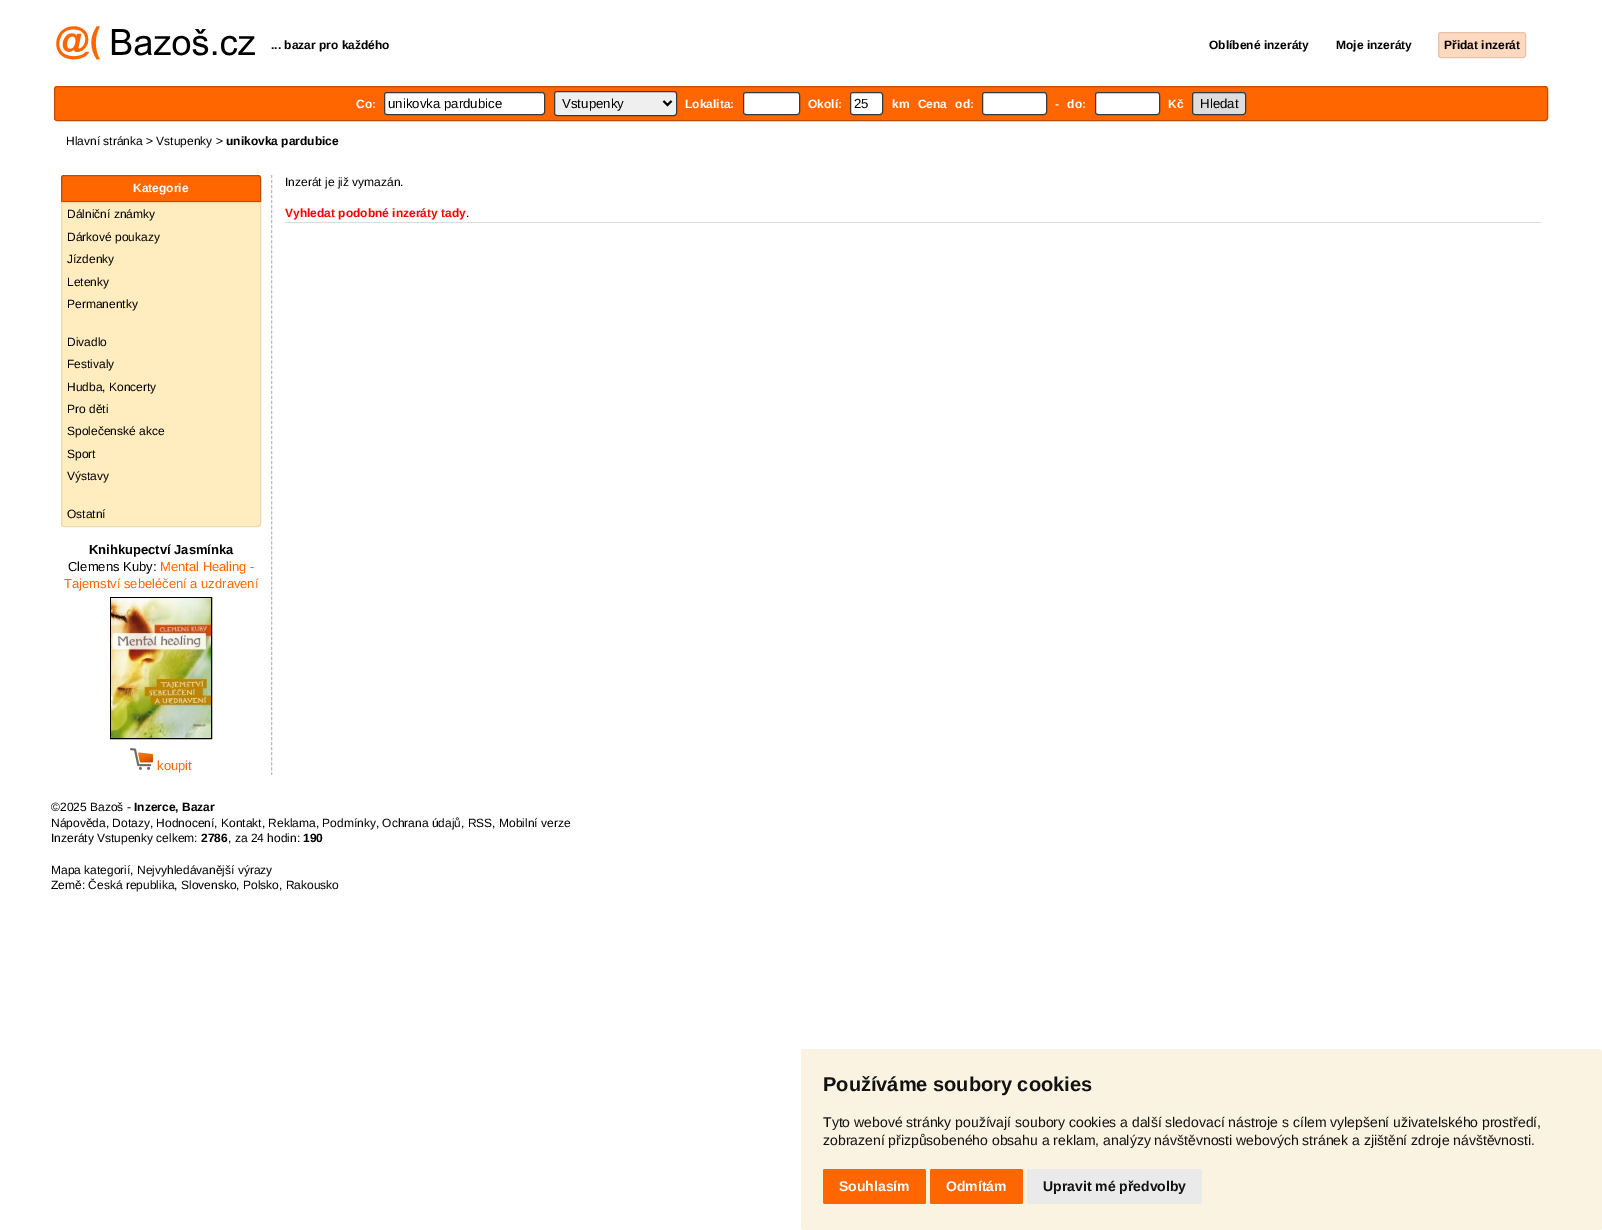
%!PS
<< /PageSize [1602 1230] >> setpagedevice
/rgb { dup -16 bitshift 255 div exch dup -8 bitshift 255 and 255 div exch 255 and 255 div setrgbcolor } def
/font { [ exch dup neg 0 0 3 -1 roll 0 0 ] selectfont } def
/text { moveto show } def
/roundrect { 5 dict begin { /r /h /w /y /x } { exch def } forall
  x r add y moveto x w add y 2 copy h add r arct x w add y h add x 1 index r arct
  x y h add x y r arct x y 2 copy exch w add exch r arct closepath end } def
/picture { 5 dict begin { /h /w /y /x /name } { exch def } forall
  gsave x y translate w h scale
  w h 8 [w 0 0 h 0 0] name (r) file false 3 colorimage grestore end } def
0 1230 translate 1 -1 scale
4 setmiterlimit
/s1 { /LiberationSans-Bold 12 font 16#000000 rgb } def
/s2 { /LiberationSans-Bold 12 font 16#FFFFFF rgb } def
/s3 { /LiberationSans-Regular 13.25 font 16#000000 rgb } def
/s4 { /LiberationSans-Regular 12 font 16#000000 rgb } def
/s5 { /LiberationSans-Bold 13 font 16#000000 rgb } def
/s6 { /LiberationSans-Regular 13 font 16#000000 rgb } def
/s7 { /LiberationSans-Regular 13 font 16#FF6600 rgb } def
/s8 { /LiberationSans-Bold 12 font 16#FF0000 rgb } def
/s9 { /LiberationSans-Bold 20 font 16#111111 rgb } def
/s10 { /LiberationSans-Regular 14 font 16#111111 rgb } def
/s11 { /LiberationSans-Bold 14 font 16#FFFFFF rgb } def
/s12 { /LiberationSans-Bold 14 font 16#111111 rgb } def
16#FFFFFF rgb
0 0 1602 1230 rectfill
(pic1.raw) 56 26 199 34 picture
s1
(... bazar pro každého) 271 49 text
(Oblíbené inzeráty) 1209 49 text
(Moje inzeráty) 1336 49 text
16#FFD9BF rgb
1438.5 32.5 87 25 2.5 roundrect gsave fill grestore
16#E4C2AB rgb
stroke
s1
(Přidat inzerát) 1444 49 text
16#FF6600 rgb
54.5 86.5 1493 34 2.5 roundrect gsave fill grestore
16#BF4C00 rgb
stroke
s2
(Co:) 356 108 text
384.5 92.5 160 22 2.5 roundrect gsave fill grestore
16#393939 rgb
stroke
s3
(unikovka pardubice) 388 108 text
16#EFEFEF rgb
554.5 91.5 122 24 2.5 roundrect gsave fill grestore
16#393939 rgb
stroke
16#000000 rgb
2 setlinewidth
663.5 101 moveto 667.5 105 lineto 671.5 101 lineto stroke
(Vstupenky) 562 108 text
s2
(Lokalita:) 685 108 text
743.5 92.5 56 22 2.5 roundrect gsave fill grestore
16#393939 rgb
1 setlinewidth
stroke
s2
(Okolí:) 808 108 text
850.5 92.5 32 22 2.5 roundrect gsave fill grestore
16#393939 rgb
stroke
s3
(25) 854 108 text
/LiberationSans-Bold 12 font
16#FFFFFF rgb
892 108 moveto 5 0 32 (km Cena od:) widthshow
982.5 92.5 64 22 2.5 roundrect gsave fill grestore
16#393939 rgb
stroke
16#FFFFFF rgb
1055 108 moveto 5 0 32 (- do:) widthshow
1095.5 92.5 64 22 2.5 roundrect gsave fill grestore
16#393939 rgb
stroke
s2
(Kč) 1168 108 text
16#DDDDDD rgb
1192.5 92.5 53 22 2.5 roundrect gsave fill grestore
16#393939 rgb
stroke
s3
(Hledat) 1200 108 text
s4
(Hlavní stránka > Vstupenky >) 66 145 text
s1
(unikovka pardubice) 226 145 text
16#BBBBBB rgb
[3 2.02] 0 setdash
271.5 175 moveto 271.5 775 lineto stroke
16#FF6600 rgb
64 175.5 moveto 258 175.5 lineto 259.5 175.5 260.5 176.5 260.5 178 curveto 260.5 201.5 lineto 61.5 201.5 lineto 61.5 178 lineto 61.5 176.5 62.5 175.5 64 175.5 curveto closepath gsave fill grestore
16#BF4C00 rgb
[] 0 setdash
stroke
s2
(Kategorie) 133 192 text
16#FFECBF rgb
61.5 202.5 moveto 260.5 202.5 lineto 260.5 524 lineto 260.5 525.5 259.5 526.5 258 526.5 curveto 64 526.5 lineto 62.5 526.5 61.5 525.5 61.5 524 curveto closepath gsave fill grestore
16#EBD9B0 rgb
stroke
s4
(Dálniční známky) 67 218 text
(Dárkové poukazy) 67 241 text
(Jízdenky) 67 263 text
(Letenky) 67 286 text
(Permanentky) 67 308 text
(Divadlo) 67 346 text
(Festivaly) 67 368 text
(Hudba, Koncerty) 67 391 text
(Pro děti) 67 413 text
(Společenské akce) 67 435 text
(Sport) 67 458 text
(Výstavy) 67 480 text
(Ostatní) 67 518 text
s5
(Knihkupectví Jasmínka) 89 554 text
s6
(Clemens Kuby:) 68 571 text
s7
(Mental Healing -) 160 571 text
(Tajemství sebeléčení a uzdravení) 64 588 text
16#000000 rgb
110.5 597.5 101 141 rectstroke
(pic2.raw) 111 598 100 140 picture
(pic3.raw) 130 748 23 22 picture
s7
(koupit) 157 770 text
s4
(Inzerát je již vymazán.) 285 186 text
s8
(Vyhledat podobné inzeráty tady) 285 217 text
s4
(.) 466 217 text
16#DDDDDD rgb
285 222 1256 1 rectfill
s4
(©2025 Bazoš -) 51 811 text
s1
(Inzerce, Bazar) 134 811 text
s4
(Nápověda, Dotazy, Hodnocení, Kontakt, Reklama, Podmínky, Ochrana údajů, RSS, Mobilní verze) 51 827 text
(Inzeráty Vstupenky celkem:) 51 842 text
s1
(2786) 201 842 text
s4
(, za 24 hodin:) 228 842 text
s1
(190) 303 842 text
s4
(Mapa kategorií, Nejvyhledávanější výrazy) 51 874 text
(Země: Česká republika, Slovensko, Polsko, Rakousko) 51 889 text
16#FBF3E1 rgb
801 1049 801 181 3 roundrect fill
s9
(Používáme soubory cookies) 823 1091 text
s10
(Tyto webové stránky používají soubory cookies a další sledovací nástroje s cílem vylepšení uživatelského prostředí,) 823 1127 text
(zobrazení přizpůsobeného obsahu a reklam, analýzy návštěvnosti webových stránek a zjištění zdroje návštěvnosti.) 823 1145 text
16#FF6600 rgb
823 1169 103 35 2 roundrect fill
s11
(Souhlasím) 839 1191 text
16#FF6600 rgb
930 1169 93 35 2 roundrect fill
s11
(Odmítám) 946 1191 text
16#EAEAEA rgb
1027 1169 175 35 2 roundrect fill
s12
(Upravit mé předvolby) 1043 1191 text
showpage
